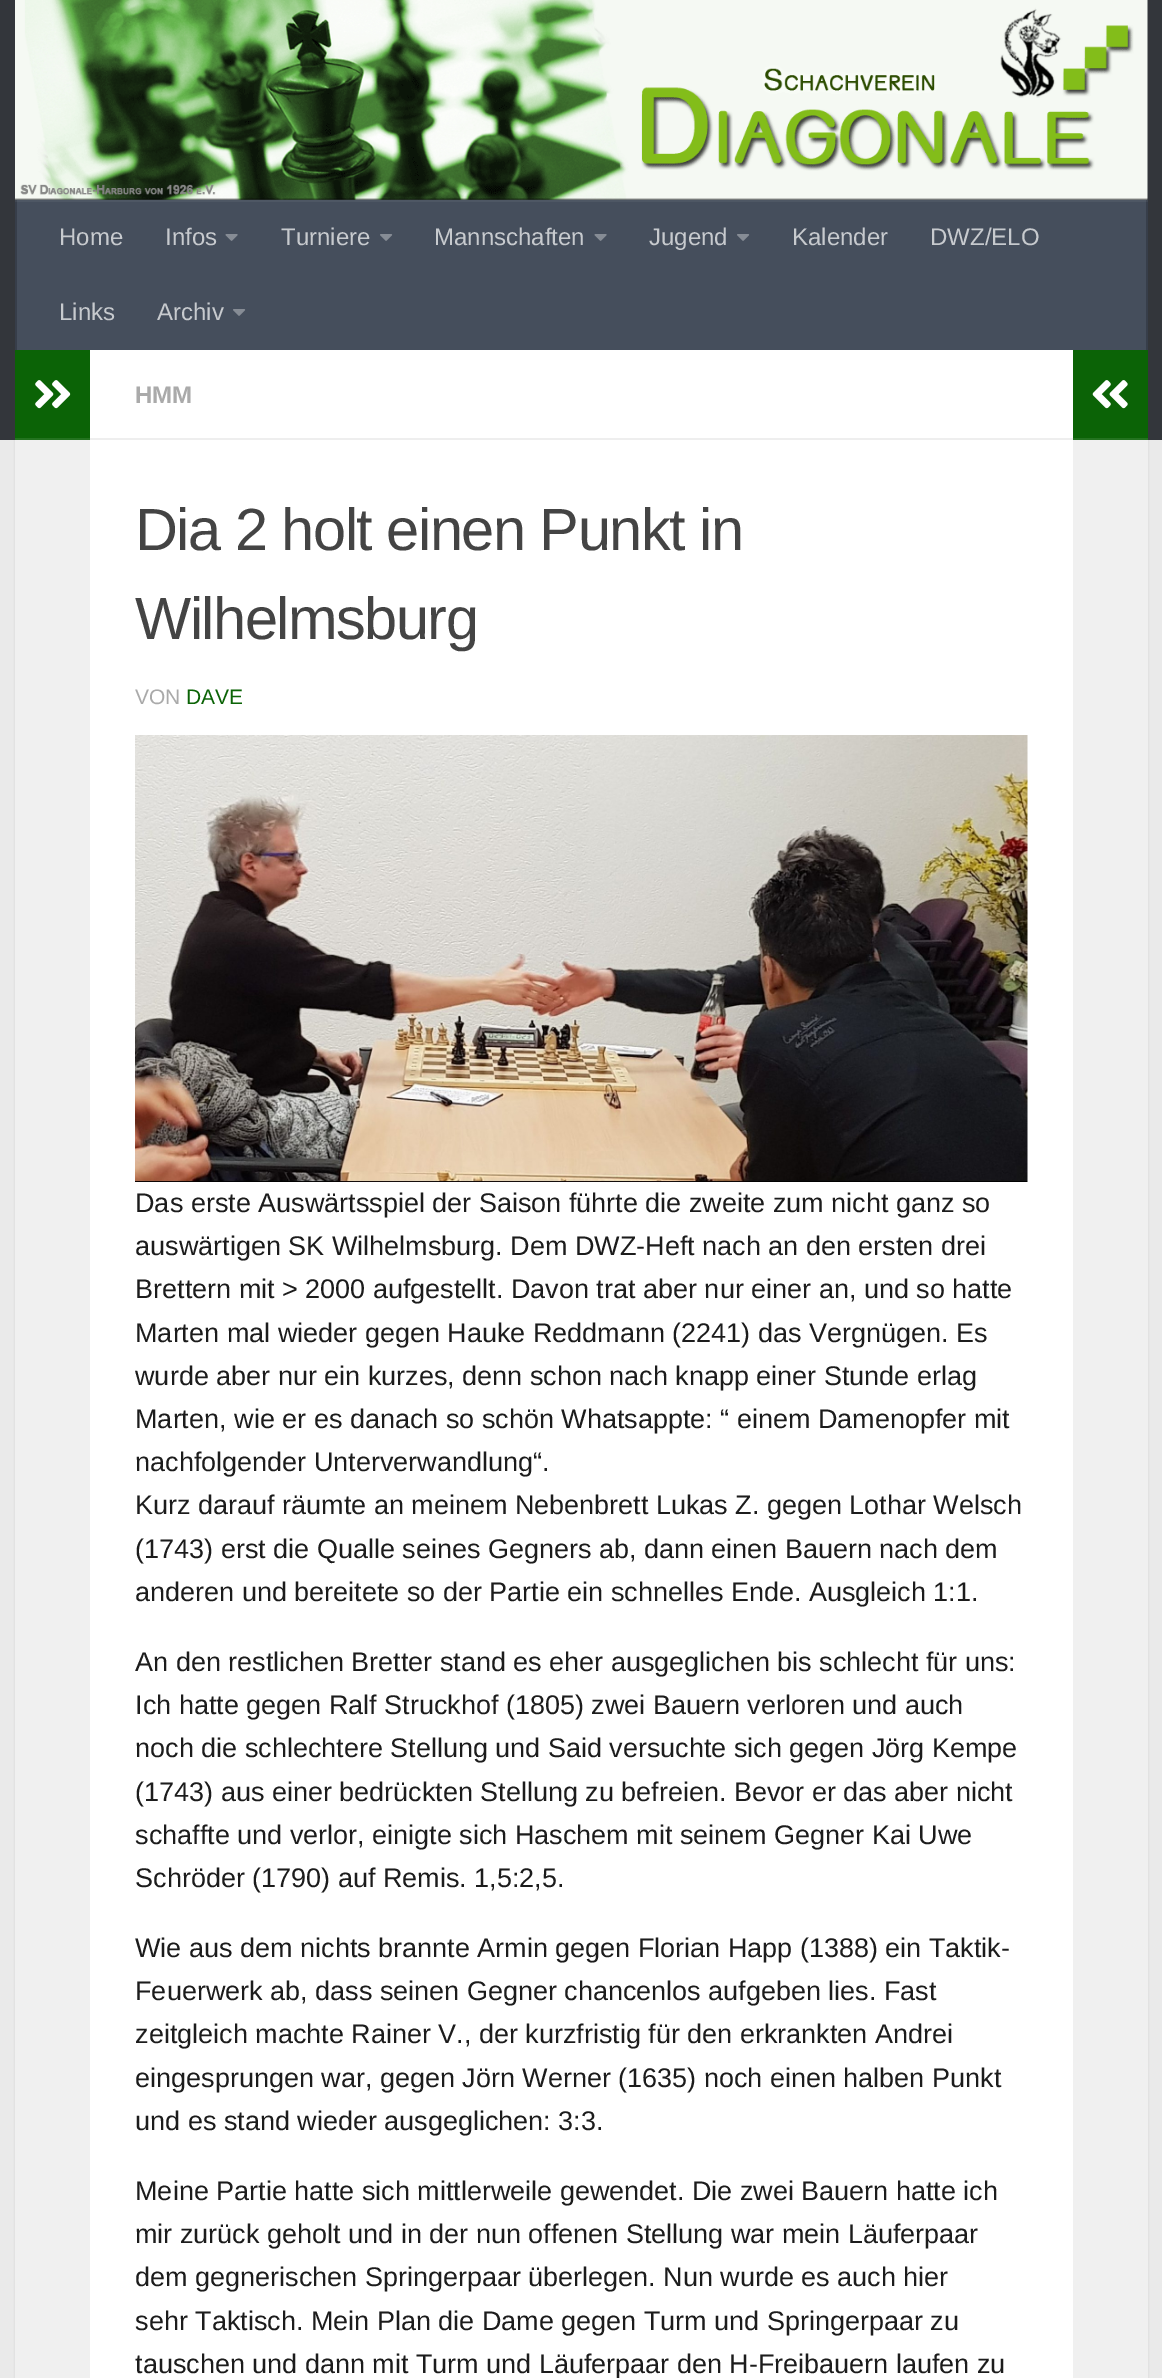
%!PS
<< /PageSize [1162 2378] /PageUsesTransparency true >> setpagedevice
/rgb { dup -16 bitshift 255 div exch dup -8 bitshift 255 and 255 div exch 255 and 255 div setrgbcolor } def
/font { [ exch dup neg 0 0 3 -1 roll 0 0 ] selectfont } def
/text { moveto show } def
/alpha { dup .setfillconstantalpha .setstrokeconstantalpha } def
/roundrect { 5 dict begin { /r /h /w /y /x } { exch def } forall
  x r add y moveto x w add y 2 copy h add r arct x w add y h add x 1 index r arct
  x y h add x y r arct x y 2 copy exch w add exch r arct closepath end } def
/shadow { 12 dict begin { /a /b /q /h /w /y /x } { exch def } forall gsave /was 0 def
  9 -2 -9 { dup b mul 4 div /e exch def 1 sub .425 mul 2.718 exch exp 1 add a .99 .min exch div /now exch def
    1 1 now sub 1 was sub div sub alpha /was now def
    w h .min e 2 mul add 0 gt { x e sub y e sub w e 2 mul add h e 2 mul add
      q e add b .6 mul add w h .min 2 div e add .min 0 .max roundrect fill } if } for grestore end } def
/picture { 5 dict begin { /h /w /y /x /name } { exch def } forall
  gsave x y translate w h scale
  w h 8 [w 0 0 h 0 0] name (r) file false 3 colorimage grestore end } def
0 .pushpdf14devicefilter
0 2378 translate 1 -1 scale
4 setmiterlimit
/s1 { /LiberationSans-Regular 24 font 16#C7CACE rgb } def
/s2 { /LiberationSans-Bold 24 font 16#AAAAAA rgb } def
/s3 { /LiberationSans-Regular 21 font 16#AAAAAA rgb } def
/s4 { /LiberationSans-Regular 21 font 16#0B6306 rgb } def
/s5 { /LiberationSans-Regular 27 font 16#1C1C1C rgb } def
16#EAEAEA rgb
0 0 1162 2378 rectfill
16#000000 rgb
15 351 1133 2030 0 1 0.1 shadow
16#33363B rgb
0 0 1162 440 rectfill
(pic1.raw) 15 0 1133 200 picture
0.2 alpha
16#000000 rgb
15 198 moveto 15 200 lineto 1148 200 lineto 1148 348 lineto 1148 198 lineto closepath fill
1 alpha
16#454E5C rgb
17 202 1129 148 rectfill
16#4E5764 rgb
15 200 1133 2 rectfill
16#373E4A rgb
1146 200 2 150 rectfill
16#414853 rgb
1146 200 2 2 rectfill
16#373E4A rgb
15 200 2 150 rectfill
16#414853 rgb
15 200 2 2 rectfill
s1
(Home) 59 245 text
(Infos) 165 245 text
(pic2.raw) 225 234 13 7 picture
(Turniere) 281 245 text
(pic3.raw) 380 234 13 7 picture
(Mannschaften) 434 245 text
(pic2.raw) 594 234 13 7 picture
(Jugend) 649 245 text
(pic3.raw) 737 234 13 7 picture
(Kalender) 792 245 text
(DWZ/ELO) 930 245 text
(Links) 59 320 text
(Archiv) 157 320 text
(pic3.raw) 233 309 13 7 picture
16#FFFFFF rgb
90 350 983 2028 rectfill
16#F0F0F0 rgb
15 440 75 1938 rectfill
16#0B6306 rgb
15 350 75 88 rectfill
16#23731F rgb
15 438 75 2 rectfill
(pic4.raw) 35 380 36 29 picture
16#EEEEEE rgb
90 438 983 2 rectfill
s2
(HMM) 135 403 text
/LiberationSans-Regular 59.5 font
16#444444 rgb
135 550 moveto -1.5 0 (Dia 2 holt einen Punkt in) ashow
135 639 moveto -1.5 0 (Wilhelmsburg) ashow
s3
(VON) 135 704 text
s4
(DAVE) 186 704 text
(pic5.raw) 135 735 893 447 picture
s5
(Das erste Auswärtsspiel der Saison führte die zweite zum nicht ganz so) 135 1212 text
(auswärtigen SK Wilhelmsburg. Dem DWZ-Heft nach an den ersten drei) 135 1255 text
(Brettern mit > 2000 aufgestellt. Davon trat aber nur einer an, und so hatte) 135 1298 text
(Marten mal wieder gegen Hauke Reddmann \(2241\) das Vergnügen. Es) 135 1342 text
(wurde aber nur ein kurzes, denn schon nach knapp einer Stunde erlag) 135 1385 text
(Marten, wie er es danach so schön Whatsappte: “ einem Damenopfer mit) 135 1428 text
(nachfolgender Unterverwandlung“.) 135 1471 text
(Kurz darauf räumte an meinem Nebenbrett Lukas Z. gegen Lothar Welsch) 135 1514 text
(\(1743\) erst die Qualle seines Gegners ab, dann einen Bauern nach dem) 135 1558 text
(anderen und bereitete so der Partie ein schnelles Ende. Ausgleich 1:1.) 135 1601 text
(An den restlichen Bretter stand es eher ausgeglichen bis schlecht für uns:) 135 1671 text
(Ich hatte gegen Ralf Struckhof \(1805\) zwei Bauern verloren und auch) 135 1714 text
(noch die schlechtere Stellung und Said versuchte sich gegen Jörg Kempe) 135 1757 text
(\(1743\) aus einer bedrückten Stellung zu befreien. Bevor er das aber nicht) 135 1801 text
(schaffte und verlor, einigte sich Haschem mit seinem Gegner Kai Uwe) 135 1844 text
(Schröder \(1790\) auf Remis. 1,5:2,5.) 135 1887 text
(Wie aus dem nichts brannte Armin gegen Florian Happ \(1388\) ein Taktik-) 135 1957 text
(Feuerwerk ab, dass seinen Gegner chancenlos aufgeben lies. Fast) 135 2000 text
(zeitgleich machte Rainer V., der kurzfristig für den erkrankten Andrei) 135 2043 text
(eingesprungen war, gegen Jörn Werner \(1635\) noch einen halben Punkt) 135 2087 text
(und es stand wieder ausgeglichen: 3:3.) 135 2130 text
(Meine Partie hatte sich mittlerweile gewendet. Die zwei Bauern hatte ich) 135 2200 text
(mir zurück geholt und in der nun offenen Stellung war mein Läuferpaar) 135 2243 text
(dem gegnerischen Springerpaar überlegen. Nun wurde es auch hier) 135 2286 text
(sehr Taktisch. Mein Plan die Dame gegen Turm und Springerpaar zu) 135 2330 text
(tauschen und dann mit Turm und Läuferpaar den H-Freibauern laufen zu) 135 2373 text
16#0B6306 rgb
1073 350 75 88 rectfill
16#23731F rgb
1073 438 75 2 rectfill
(pic6.raw) 1092 380 36 29 picture
16#F0F0F0 rgb
1073 440 75 1938 rectfill
.poppdf14devicefilter showpage
